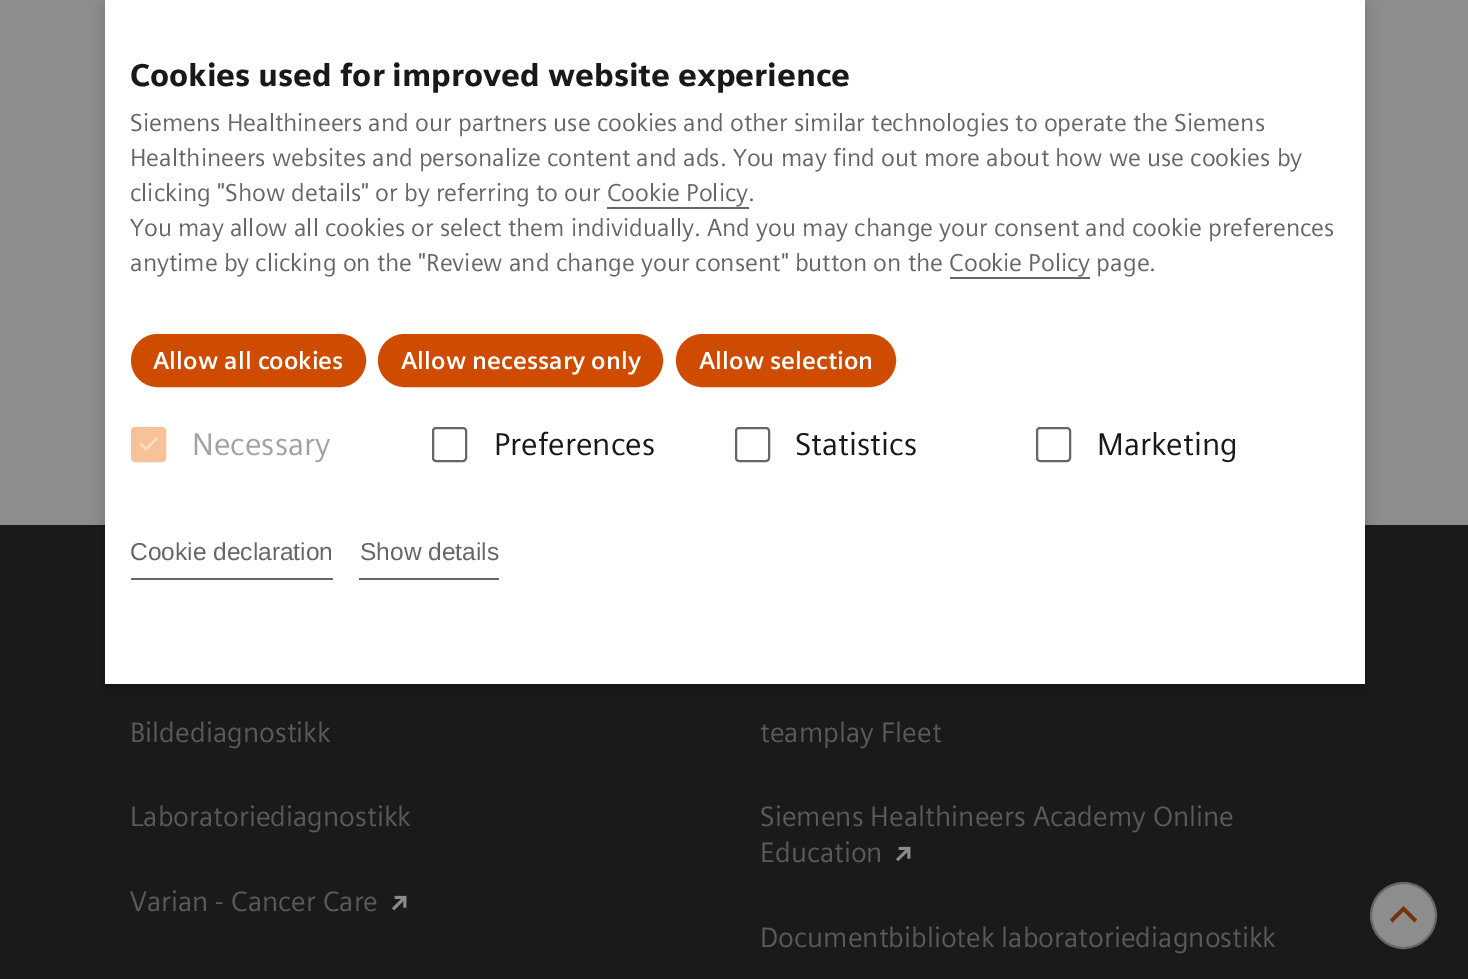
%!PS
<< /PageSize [1468 979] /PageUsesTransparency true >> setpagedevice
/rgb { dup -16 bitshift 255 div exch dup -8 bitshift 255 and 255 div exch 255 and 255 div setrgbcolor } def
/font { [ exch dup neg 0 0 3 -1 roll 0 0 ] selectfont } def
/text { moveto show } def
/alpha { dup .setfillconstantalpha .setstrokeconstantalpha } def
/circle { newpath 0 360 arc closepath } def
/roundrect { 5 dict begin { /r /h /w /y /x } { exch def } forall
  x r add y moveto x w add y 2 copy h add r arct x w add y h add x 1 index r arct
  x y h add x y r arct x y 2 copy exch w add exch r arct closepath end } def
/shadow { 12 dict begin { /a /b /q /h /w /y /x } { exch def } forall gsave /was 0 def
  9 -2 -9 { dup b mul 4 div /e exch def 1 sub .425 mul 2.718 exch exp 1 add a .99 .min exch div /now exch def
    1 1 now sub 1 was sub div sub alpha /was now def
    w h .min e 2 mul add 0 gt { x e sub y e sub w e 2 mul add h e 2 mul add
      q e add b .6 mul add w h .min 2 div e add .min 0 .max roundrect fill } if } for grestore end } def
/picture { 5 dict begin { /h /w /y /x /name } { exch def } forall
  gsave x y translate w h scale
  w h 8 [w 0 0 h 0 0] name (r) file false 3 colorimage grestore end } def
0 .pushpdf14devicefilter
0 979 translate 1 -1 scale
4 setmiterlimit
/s1 { /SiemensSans-Black 31.5 font 16#1A1919 rgb } def
/s2 { /SiemensSans-Regular 24.5 font 16#666666 rgb } def
/s3 { /SiemensSans-Bold 24.5 font 16#FFFFFF rgb } def
/s4 { /SiemensSans-Regular 31.5 font 16#A3A3A3 rgb } def
/s5 { /SiemensSans-Regular 31.5 font 16#1A1919 rgb } def
/s6 { /LiberationSans-Regular 24.5 font 16#666666 rgb } def
/s7 { /SiemensSans-Regular 28 font 16#5A5A5A rgb } def
16#8D8D8D rgb
0 0 1468 979 rectfill
16#1A1A1A rgb
0 525 1468 454 rectfill
16#000000 rgb
105 7 1260 684 0 8 0.2 shadow
16#FFFFFF rgb
105 0 1260 684 rectfill
s1
(Cookies used for improved website experience) 130 86 text
s2
(Siemens Healthineers and our partners use cookies and other similar technologies to operate the Siemens) 130 131 text
(Healthineers websites and personalize content and ads. You may find out more about how we use cookies by) 130 166 text
(clicking "Show details" or by referring to our Cookie Policy.) 130 201 text
607 207 142 2 rectfill
(You may allow all cookies or select them individually. And you may change your consent and cookie preferences) 130 236 text
(anytime by clicking on the "Review and change your consent" button on the Cookie Policy page.) 130 271 text
950 277 140 2 rectfill
16#CF4B00 rgb
132 335 233 51 25.5 roundrect gsave fill grestore
2 setlinewidth
stroke
s3
(Allow all cookies) 153 369 text
16#CF4B00 rgb
379 335 283 51 25.5 roundrect gsave fill grestore
stroke
s3
(Allow necessary only) 401 369 text
16#CF4B00 rgb
677 335 218 51 25.5 roundrect gsave fill grestore
stroke
s3
(Allow selection) 699 369 text
16#F7C29A rgb
132 428 33 33 3 roundrect gsave fill grestore
stroke
(pic1.raw) 139 437 19 14 picture
s4
(Necessary) 192 455 text
16#666666 rgb
433 428 33 33 3 roundrect stroke
s5
(Preferences) 494 455 text
16#666666 rgb
736 428 33 33 3 roundrect stroke
s5
(Statistics) 795 455 text
16#666666 rgb
1037 428 33 33 3 roundrect stroke
s5
(Marketing) 1097 455 text
16#666666 rgb
131 578 202 2 rectfill
s6
(Cookie declaration) 130 560 text
359 578 140 2 rectfill
(Show details) 360 560 text
s7
(Bildediagnostikk) 130 742 text
(Laboratoriediagnostikk) 130 826 text
(Varian - Cancer Care) 130 911 text
(pic2.raw) 392 895 15 16 picture
(teamplay Fleet) 760 742 text
(Siemens Healthineers Academy Online) 760 826 text
(Education) 760 862 text
(pic2.raw) 896 846 15 16 picture
(Documentbibliotek laboratoriediagnostikk) 760 947 text
16#8D8D8D rgb
1403.5 915.5 32.5 circle gsave fill grestore
16#676767 rgb
stroke
16#75330D rgb
1417 919.5 moveto 1414.5 922.5 lineto 1403.5 911.5 lineto 1392.5 922.5 lineto 1390 919.5 lineto 1403.5 906 lineto closepath fill
.poppdf14devicefilter showpage
